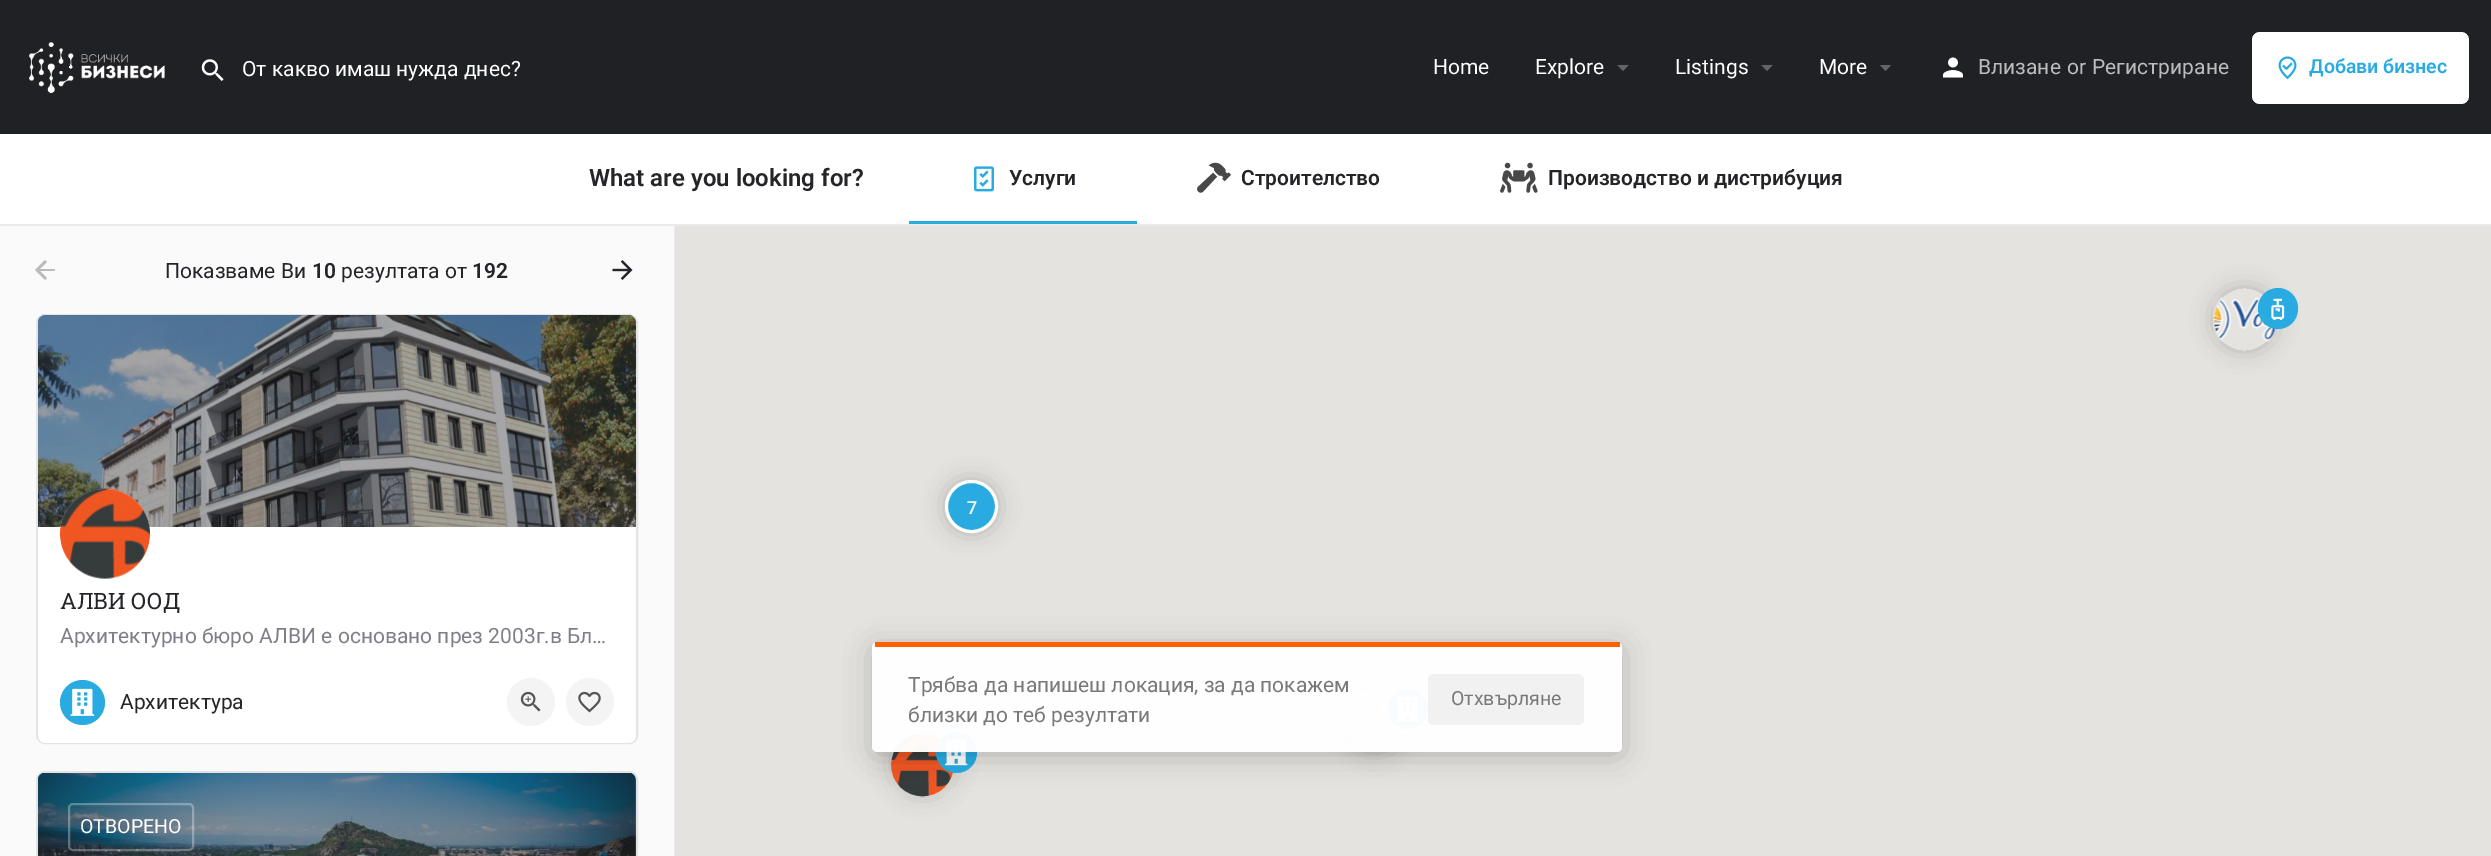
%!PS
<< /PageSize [2491 856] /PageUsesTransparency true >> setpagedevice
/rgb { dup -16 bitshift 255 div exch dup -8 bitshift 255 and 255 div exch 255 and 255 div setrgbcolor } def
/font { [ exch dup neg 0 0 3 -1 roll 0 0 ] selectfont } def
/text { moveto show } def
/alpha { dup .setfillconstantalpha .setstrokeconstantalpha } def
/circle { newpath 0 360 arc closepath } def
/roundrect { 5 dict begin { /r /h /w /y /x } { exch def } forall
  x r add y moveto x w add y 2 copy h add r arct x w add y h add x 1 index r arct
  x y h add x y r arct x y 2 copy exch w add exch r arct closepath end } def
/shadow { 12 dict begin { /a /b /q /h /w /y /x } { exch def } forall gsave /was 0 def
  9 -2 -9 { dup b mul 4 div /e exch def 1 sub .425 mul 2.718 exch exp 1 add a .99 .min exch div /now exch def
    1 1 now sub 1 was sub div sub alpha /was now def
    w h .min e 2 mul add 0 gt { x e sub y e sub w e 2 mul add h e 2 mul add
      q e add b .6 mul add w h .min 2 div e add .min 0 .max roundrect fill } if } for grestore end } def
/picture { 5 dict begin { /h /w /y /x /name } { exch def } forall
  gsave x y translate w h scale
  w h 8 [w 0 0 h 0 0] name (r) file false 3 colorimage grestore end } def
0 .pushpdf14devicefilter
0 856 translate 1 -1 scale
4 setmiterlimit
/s1 { /Roboto-Regular 21 font 16#FFFFFF rgb } def
/s2 { /Roboto-Regular 21 font 16#BCBCBE rgb } def
/s3 { /Roboto-SemiBold 19.5 font 16#29ABE1 rgb } def
/s4 { /Roboto-SemiBold 24 font 16#242429 rgb } def
/s5 { /Roboto-SemiBold 21 font 16#242429 rgb } def
/s6 { /Roboto-Regular 21 font 16#242429 rgb } def
/s7 { /RobotoSlab-Regular 22.5 font 16#242429 rgb } def
/s8 { /Roboto-Regular 21 font 16#7E7E89 rgb } def
/s9 { /Roboto-Regular 19.5 font 16#FFFFFF rgb } def
/s10 { /Roboto-Medium 18 font 16#FFFFFF rgb } def
/s11 { /Roboto-Regular 21 font 16#797979 rgb } def
/s12 { /Roboto-Regular 19.5 font 16#797979 rgb } def
16#FAFAFA rgb
0 0 2491 856 rectfill
16#202125 rgb
0 0 2491 134 rectfill
(pic1.raw) 29 42 136 52 picture
(pic2.raw) 201 59 23 22 picture
s1
(От какво имаш нужда днес?) 242 76 text
(Home) 1433 74 text
(Explore) 1535 74 text
16#636466 rgb
1617.5 65 moveto 1628.5 65 lineto 1623 71 lineto closepath fill
s1
(Listings) 1675 74 text
16#636466 rgb
1761.5 65 moveto 1772.5 65 lineto 1767 71 lineto closepath fill
s1
(More) 1819 74 text
16#636466 rgb
1880 65 moveto 1891 65 lineto 1885.5 71 lineto closepath fill
(pic3.raw) 1943 57 20 21 picture
s2
(Влизане) 1978 74 text
(or) 2067 74 text
(Регистриране) 2092 74 text
16#FFFFFF rgb
2252 32 217 72 8 roundrect fill
(pic4.raw) 2278 56 19 24 picture
s3
(Добави бизнес) 2309 73 text
16#FFFFFF rgb
0 134 2491 90 rectfill
16#EBEBEB rgb
674 225 1 631 rectfill
0 224 2491 2 rectfill
s4
(What are you looking for?) 589 186 text
(pic5.raw) 974 166 20 26 picture
s5
(Услуги) 1009 185 text
16#29ABE1 rgb
909 221 228 3 rectfill
(pic6.raw) 1197 162 34 31 picture
s5
(Строителство) 1241 185 text
(pic7.raw) 1500 162 38 31 picture
(Производство и дистрибуция) 1548 185 text
16#BABABB rgb
55 269 moveto 55 271 lineto 40 271 lineto 47 278 lineto 45 280 lineto 35 270 lineto 45 260 lineto 47 262 lineto 40 269 lineto closepath 60 285 moveto 60 285 lineto closepath 90 285 moveto 90 285 lineto closepath 120 285 moveto 120 285 lineto closepath 150 285 moveto 150 285 lineto closepath fill
s6
(Показваме Ви) 165 278 text
s5
(10) 312 278 text
s6
(резултата от) 341 278 text
s5
(192) 472 278 text
(pic8.raw) 612 260 21 20 picture
16#E3E3E3 rgb
2 setlinewidth
37 315 600 428 8 roundrect stroke
(pic9.raw) 38 315 598 212 picture
0.4 alpha
16#242429 rgb
46 315 moveto 628 315 lineto 632.5 315 636 318.5 636 323 curveto 636 660 lineto 38 660 lineto 38 323 lineto 38 318.5 41.5 315 46 315 curveto closepath fill
1 alpha
16#FFFFFF rgb
38 527 598 133 rectfill
105 534 45 circle fill
(pic10.raw) 60 488 90 91 picture
s7
(АЛВИ ООД) 60 609 text
s8
(Архитектурно бюро АЛВИ е основано през 2003г.в Бл…) 60 643 text
16#FFFFFF rgb
38 660 moveto 636 660 lineto 636 735 lineto 636 739.5 632.5 743 628 743 curveto 46 743 lineto 41.5 743 38 739.5 38 735 curveto closepath fill
16#29ABE1 rgb
82.5 702.5 22.5 circle fill
(pic11.raw) 70 688 25 28 picture
s6
(Архитектура) 120 709 text
16#F4F4F4 rgb
531 702 24 circle fill
(pic12.raw) 520 691 21 21 picture
590 702 24 circle fill
(pic13.raw) 578 691 23 22 picture
16#E3E3E3 rgb
37 772 600 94 8 roundrect stroke
(pic14.raw) 38 773 598 83 picture
0.4 alpha
16#242429 rgb
46 773 moveto 628 773 lineto 632.5 773 636 776.5 636 781 curveto 636 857 lineto 38 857 lineto 38 781 lineto 38 776.5 41.5 773 46 773 curveto closepath fill
0.3 alpha
16#FFFFFF rgb
69 804 124 46 4 roundrect stroke
1 alpha
s9
(ОТВОРЕНО) 80 833 text
16#E5E3DF rgb
675 226 1816 630 rectfill
gsave
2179 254 moveto 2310 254 lineto 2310 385 lineto 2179 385 lineto closepath 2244.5 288 moveto 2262 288 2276 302 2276 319.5 curveto 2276 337 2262 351 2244.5 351 curveto 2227 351 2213 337 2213 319.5 curveto 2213 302 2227 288 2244.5 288 curveto closepath eoclip newpath
16#000000 rgb
2213 288 63 63 31.5 11 0.2 shadow
grestore
(pic15.raw) 2213 297 64 45 picture
16#29ABE1 rgb
2258 288 40 41 20 roundrect fill
(pic16.raw) 2271 298 14 22 picture
16#000000 rgb
891 732 63 63 31.5 11 0.2 shadow
(pic17.raw) 891 733 63 64 picture
16#29ABE1 rgb
956.5 752.5 20.5 circle fill
(pic18.raw) 945 739 23 27 picture
gsave
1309 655 moveto 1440 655 lineto 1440 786 lineto 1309 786 lineto closepath 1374.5 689 moveto 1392 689 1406 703 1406 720.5 curveto 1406 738 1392 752 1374.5 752 curveto 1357 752 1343 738 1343 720.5 curveto 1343 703 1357 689 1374.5 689 curveto closepath eoclip newpath
16#000000 rgb
1343 689 63 63 31.5 11 0.2 shadow
grestore
(pic19.raw) 1343 713 64 21 picture
1408 709 20 circle fill
(pic20.raw) 1396 696 23 26 picture
16#000000 rgb
945 480 53 53 26.5 11 0.2 shadow
16#29ABE1 rgb
971.5 506.5 25 circle gsave fill grestore
16#FFFFFF rgb
3 setlinewidth
stroke
s10
(7) 967 514 text
gsave
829 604 moveto 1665 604 lineto 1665 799 lineto 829 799 lineto closepath 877 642 moveto 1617 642 lineto 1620 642 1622 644 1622 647 curveto 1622 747 lineto 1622 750 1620 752 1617 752 curveto 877 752 lineto 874 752 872 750 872 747 curveto 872 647 lineto 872 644 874 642 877 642 curveto closepath eoclip newpath
16#000000 rgb
875 650 744 103 1.5 15 0.25 shadow
grestore
0.97 alpha
872 642 750 110 5 roundrect fill
1 alpha
16#FF6000 rgb
875 642 745 5 rectfill
s11
(Трябва да напишеш локация, за да покажем) 908 692 text
(близки до теб резултати) 908 722 text
16#F1F1F1 rgb
1428 674 156 51 6 roundrect fill
s12
(Отхвърляне) 1451 705 text
.poppdf14devicefilter showpage
